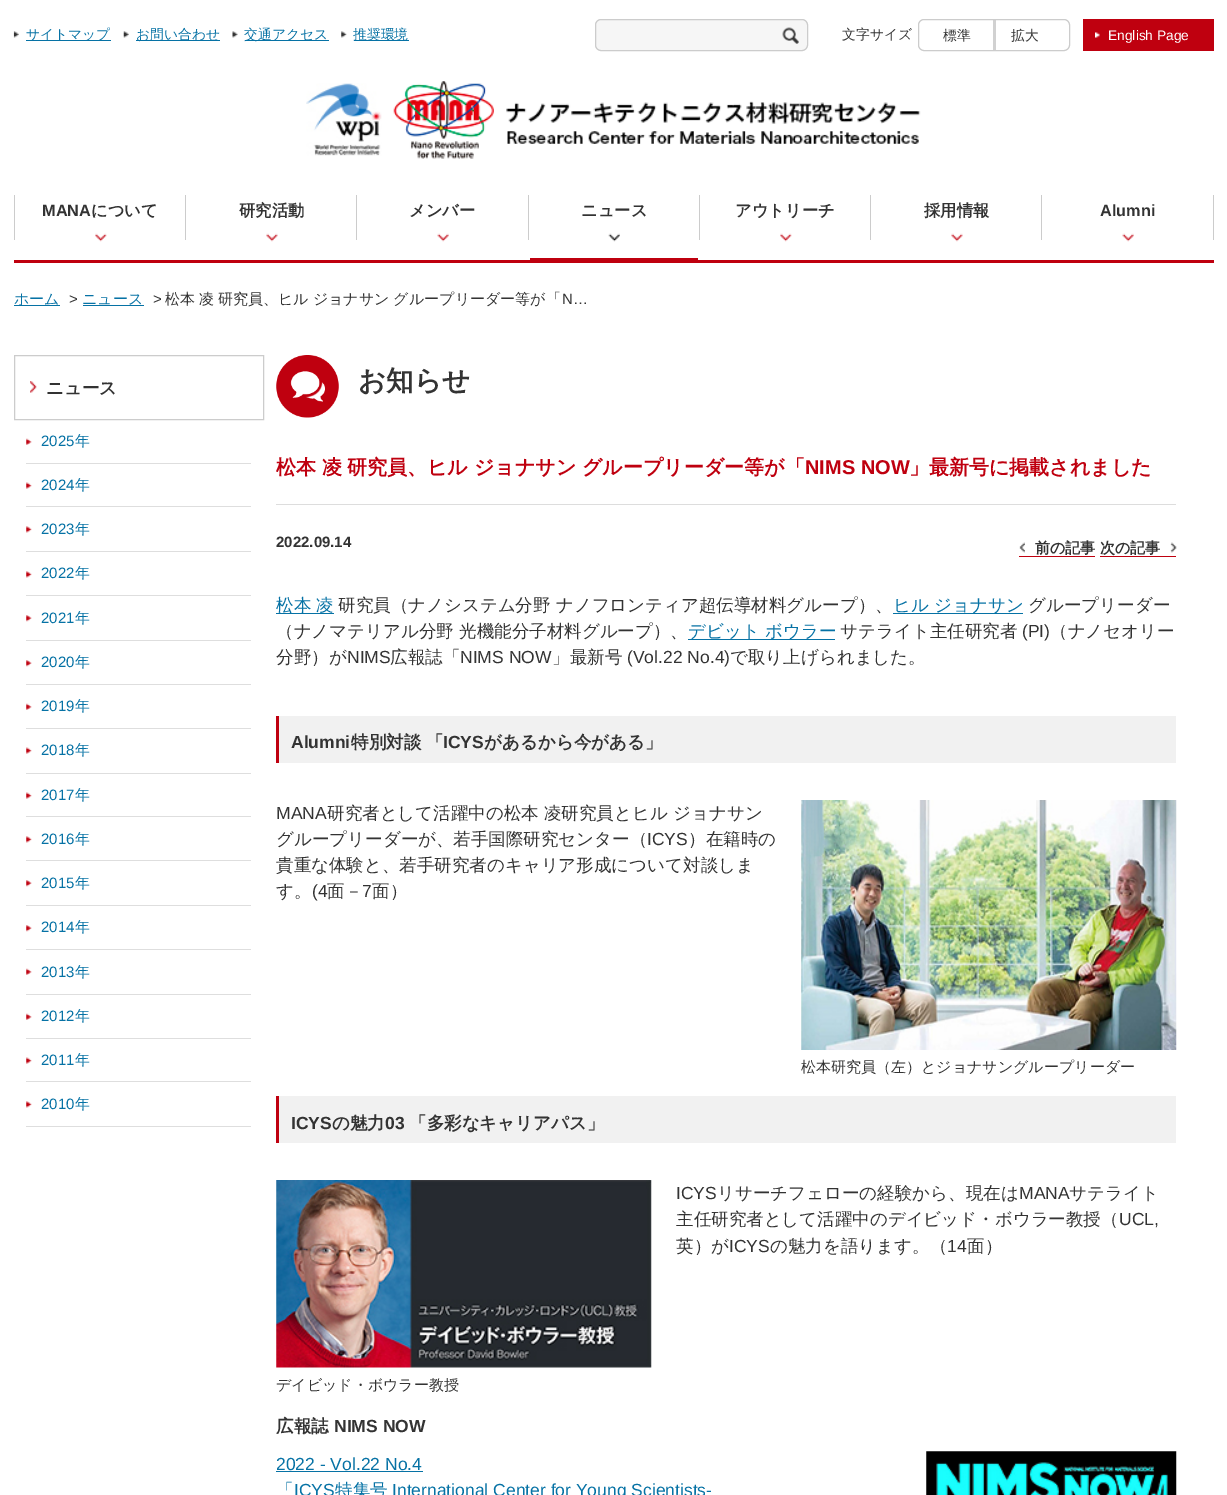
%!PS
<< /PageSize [1227 1495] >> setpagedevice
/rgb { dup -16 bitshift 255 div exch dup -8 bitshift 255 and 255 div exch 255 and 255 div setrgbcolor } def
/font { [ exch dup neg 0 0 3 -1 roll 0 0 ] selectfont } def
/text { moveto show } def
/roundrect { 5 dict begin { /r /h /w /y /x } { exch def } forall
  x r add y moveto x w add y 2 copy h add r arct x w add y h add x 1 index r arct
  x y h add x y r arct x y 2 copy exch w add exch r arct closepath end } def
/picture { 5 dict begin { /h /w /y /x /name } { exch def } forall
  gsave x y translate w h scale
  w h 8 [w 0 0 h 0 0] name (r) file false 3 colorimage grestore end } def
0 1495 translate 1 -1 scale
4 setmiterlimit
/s1 { /WenQuanYiZenHei-Medium 13.75 font 16#0672A5 rgb } def
/s2 { /WenQuanYiZenHei-Medium 13.75 font 16#333333 rgb } def
/s3 { /LiberationSans-Regular 13.75 font 16#FFFFFF rgb } def
/s4 { /LiberationSans-Bold 16.25 font 16#333333 rgb } def
/s5 { /WenQuanYiZenHei-Bold 16.25 font 16#333333 rgb } def
/s6 { /WenQuanYiZenHei-Medium 15 font 16#0672A5 rgb } def
/s7 { /LiberationSans-Regular 15 font 16#333333 rgb } def
/s8 { /WenQuanYiZenHei-Bold 17.5 font 16#333333 rgb } def
/s9 { /LiberationSans-Regular 15 font 16#0672A5 rgb } def
/s10 { /WenQuanYiZenHei-Bold 27.5 font 16#333333 rgb } def
/s11 { /WenQuanYiZenHei-Bold 20 font 16#BF000F rgb } def
/s12 { /LiberationSans-Bold 20 font 16#BF000F rgb } def
/s13 { /LiberationSans-Bold 15 font 16#333333 rgb } def
/s14 { /WenQuanYiZenHei-Bold 15 font 16#333333 rgb } def
/s15 { /WenQuanYiZenHei-Medium 17.5 font 16#0672A5 rgb } def
/s16 { /WenQuanYiZenHei-Medium 17.5 font 16#333333 rgb } def
/s17 { /LiberationSans-Regular 17.5 font 16#333333 rgb } def
/s18 { /LiberationSans-Bold 17.5 font 16#333333 rgb } def
/s19 { /WenQuanYiZenHei-Medium 15 font 16#333333 rgb } def
/s20 { /LiberationSans-Regular 17.5 font 16#0672A5 rgb } def
16#FFFFFF rgb
0 0 1227 1495 rectfill
(pic1.raw) 13 31 6 7 picture
16#0672A5 rgb
26 40 85 1 rectfill
s1
(サイトマップ) 26 39 text
(pic2.raw) 123 31 6 7 picture
136 40 84 1 rectfill
(お問い合わせ) 136 39 text
(pic3.raw) 232 31 6 7 picture
245 40 84 1 rectfill
(交通アクセス) 244 39 text
(pic4.raw) 341 31 6 7 picture
354 40 55 1 rectfill
(推奨環境) 353 39 text
16#F6F6F6 rgb
595.5 19.5 212 31 5.5 roundrect gsave fill grestore
16#CCCCCC rgb
stroke
(pic5.raw) 782 27 17 17 picture
s2
(文字サイズ) 842 39 text
16#D1D1D1 rgb
993 19 3 32 rectfill
16#CCCCCC rgb
918.5 19.5 151 31 5.5 roundrect stroke
s2
(標準) 943 40 text
(拡大) 1011 40 text
16#BF000F rgb
1083 19 131 32 rectfill
(pic6.raw) 1095 32 5 6 picture
s3
(English Page) 1108 40 text
16#BF000F rgb
14 260 1200 3 rectfill
16#CCCCCC rgb
14 195 1 45 rectfill
185 195 1 45 rectfill
(pic7.raw) 95 233 12 9 picture
s4
(MANA) 42 216 text
s5
(について) 91 216 text
16#CCCCCC rgb
356 195 1 45 rectfill
(pic8.raw) 266 233 12 9 picture
s5
(研究活動) 239 216 text
16#CCCCCC rgb
528 195 1 45 rectfill
(pic9.raw) 437 233 12 9 picture
s5
(メンバー) 409 216 text
16#CCCCCC rgb
699 195 1 45 rectfill
16#BF000F rgb
530 258 168 2 rectfill
(pic10.raw) 608 233 12 9 picture
s5
(ニュース) 581 216 text
16#CCCCCC rgb
870 195 1 45 rectfill
(pic11.raw) 780 233 12 9 picture
s5
(アウトリーチ) 735 216 text
16#CCCCCC rgb
1041 195 1 45 rectfill
(pic8.raw) 951 233 12 9 picture
s5
(採用情報) 924 216 text
16#CCCCCC rgb
1213 195 1 45 rectfill
(pic12.raw) 1122 233 12 9 picture
s4
(Alumni) 1100 216 text
(pic13.raw) 306 83 76 73 picture
(pic14.raw) 393 81 528 78 picture
16#0672A5 rgb
14 305 46 1 rectfill
s6
(ホーム) 14 304 text
s7
(>) 69 304 text
s6
(ニュース) 82 304 text
83 305 61 1 rectfill
s7
(>) 153 304 text
/WenQuanYiZenHei-Medium 15 font
165 304 moveto -0.5 0 32 (松本 凌 研究員、ヒル ジョナサン グループリーダー等が「) widthshow
s7
(N…) 562 304 text
(pic15.raw) 30 381 7 12 picture
16#CCCCCC rgb
14.5 355.5 249 64 rectstroke
s8
(ニュース) 46 394 text
16#DEDEDE rgb
26 463 225 1 rectfill
(pic16.raw) 26 438 6 7 picture
s9
(2025) 41 446 text
s6
(年) 75 446 text
16#DEDEDE rgb
26 506 225 1 rectfill
(pic17.raw) 26 482 6 7 picture
s9
(2024) 41 490 text
s6
(年) 75 490 text
16#DEDEDE rgb
26 551 225 1 rectfill
(pic18.raw) 26 526 6 7 picture
s9
(2023) 41 534 text
s6
(年) 75 534 text
16#DEDEDE rgb
26 595 225 1 rectfill
(pic18.raw) 26 571 6 7 picture
s9
(2022) 41 578 text
s6
(年) 75 578 text
16#DEDEDE rgb
26 640 225 1 rectfill
(pic19.raw) 26 615 6 7 picture
s9
(2021) 41 623 text
s6
(年) 75 623 text
16#DEDEDE rgb
26 684 225 1 rectfill
(pic19.raw) 26 660 6 7 picture
s9
(2020) 41 667 text
s6
(年) 75 667 text
16#DEDEDE rgb
26 728 225 1 rectfill
(pic16.raw) 26 703 6 7 picture
s9
(2019) 41 711 text
s6
(年) 75 711 text
16#DEDEDE rgb
26 773 225 1 rectfill
(pic17.raw) 26 747 6 7 picture
s9
(2018) 41 755 text
s6
(年) 75 755 text
16#DEDEDE rgb
26 816 225 1 rectfill
(pic17.raw) 26 792 6 7 picture
s9
(2017) 41 800 text
s6
(年) 75 800 text
16#DEDEDE rgb
26 860 225 1 rectfill
(pic18.raw) 26 836 6 7 picture
s9
(2016) 41 844 text
s6
(年) 75 844 text
16#DEDEDE rgb
26 905 225 1 rectfill
(pic19.raw) 26 880 6 7 picture
s9
(2015) 41 888 text
s6
(年) 75 888 text
16#DEDEDE rgb
26 949 225 1 rectfill
(pic19.raw) 26 925 6 7 picture
s9
(2014) 41 932 text
s6
(年) 75 932 text
16#DEDEDE rgb
26 994 225 1 rectfill
(pic16.raw) 26 968 6 7 picture
s9
(2013) 41 977 text
s6
(年) 75 977 text
16#DEDEDE rgb
26 1038 225 1 rectfill
(pic16.raw) 26 1013 6 7 picture
s9
(2012) 41 1021 text
s6
(年) 75 1021 text
16#DEDEDE rgb
26 1081 225 1 rectfill
(pic17.raw) 26 1057 6 7 picture
s9
(2011) 41 1065 text
s6
(年) 75 1065 text
16#DEDEDE rgb
26 1126 225 1 rectfill
(pic18.raw) 26 1101 6 7 picture
s9
(2010) 41 1109 text
s6
(年) 75 1109 text
(pic20.raw) 276 355 63 63 picture
s10
(お知らせ) 358 390 text
s11
(松本) 276 474 text
(凌) 322 474 text
(研究員、ヒル) 347 474 text
(ジョナサン) 474 474 text
(グループリーダー等が「) 582 474 text
s12
(NIMS NOW) 805 474 text
s11
(」最新号に掲載されました) 909 474 text
16#DDDDDD rgb
276 504 900 1 rectfill
s13
(2022.09.14) 276 547 text
(pic21.raw) 1019 542 6 11 picture
s14
(前の記事) 1035 553 text
16#BF000F rgb
1019 556 76 1 rectfill
s14
(次の記事) 1100 553 text
16#BF000F rgb
1100 556 76 1 rectfill
(pic22.raw) 1170 542 7 11 picture
16#0672A5 rgb
276 613 58 1 rectfill
s15
(松本 凌) 276 611 text
s16
(研究員（ナノシステム分野 ナノフロンティア超伝導材料グループ）、) 338 611 text
16#0672A5 rgb
893 613 130 1 rectfill
(ヒル ジョナサン) 893 611 text
s16
(グループリーダー) 1028 611 text
(（ナノマテリアル分野 光機能分子材料グループ）、) 276 637 text
16#0672A5 rgb
688 639 147 1 rectfill
(デビット ボウラー) 688 637 text
s16
(サテライト主任研究者) 840 637 text
s17
(\(PI\)) 1022 637 text
s16
(（ナノセオリー) 1050 637 text
(分野）が) 276 663 text
s17
(NIMS) 347 663 text
s16
(広報誌「) 390 663 text
s17
(NIMS NOW) 460 663 text
s16
(」最新号) 552 663 text
s17
(\(Vol.22 No.4\)) 627 663 text
s16
(で取り上げられました。) 730 663 text
16#F1F1F1 rgb
279 716 897 47 rectfill
16#BF000F rgb
276 716 3 47 rectfill
s18
(Alumni) 291 748 text
s8
(特別対談 「) 351 748 text
s18
(ICYS) 443 748 text
s8
(があるから今がある」) 484 748 text
s17
(MANA) 276 819 text
s16
(研究者として活躍中の松本 凌研究員とヒル ジョナサン) 327 819 text
(グループリーダーが、若手国際研究センター（) 276 845 text
s17
(ICYS) 647 845 text
s16
(）在籍時の) 688 845 text
(貴重な体験と、若手研究者のキャリア形成について対談しま) 276 871 text
(す。) 276 897 text
s17
(\(4) 312 897 text
s16
(面－) 327 897 text
s17
(7) 362 897 text
s16
(面）) 372 897 text
(pic23.raw) 801 800 376 250 picture
s19
(松本研究員（左）とジョナサングループリーダー) 801 1072 text
16#F1F1F1 rgb
279 1096 897 47 rectfill
16#BF000F rgb
276 1096 3 47 rectfill
s18
(ICYS) 291 1129 text
s8
(の魅力) 332 1129 text
s18
(03) 385 1129 text
s8
(「多彩なキャリアパス」) 409 1129 text
s17
(ICYS) 676 1199 text
s16
(リサーチフェローの経験から、現在は) 717 1199 text
s17
(MANA) 1019 1199 text
s16
(サテライト) 1069 1199 text
(主任研究者として活躍中のデイビッド・ボウラー教授（) 676 1225 text
s17
(UCL,) 1119 1225 text
s16
(英）が) 676 1252 text
s17
(ICYS) 729 1252 text
s16
(の魅力を語ります。（) 770 1252 text
s17
(14) 947 1252 text
s16
(面）) 967 1252 text
(pic24.raw) 276 1180 376 188 picture
s19
(デイビッド・ボウラー教授) 276 1390 text
s8
(広報誌) 276 1432 text
s18
(NIMS NOW) 334 1432 text
s20
(2022 - Vol.22 No.4) 276 1470 text
276 1471 147 1 rectfill
s15
(「) 276 1496 text
s20
(ICYS) 294 1496 text
s15
(特集号) 335 1496 text
s20
(International Center for Young Scientists-) 392 1496 text
(pic25.raw) 926 1451 251 44 picture
showpage
